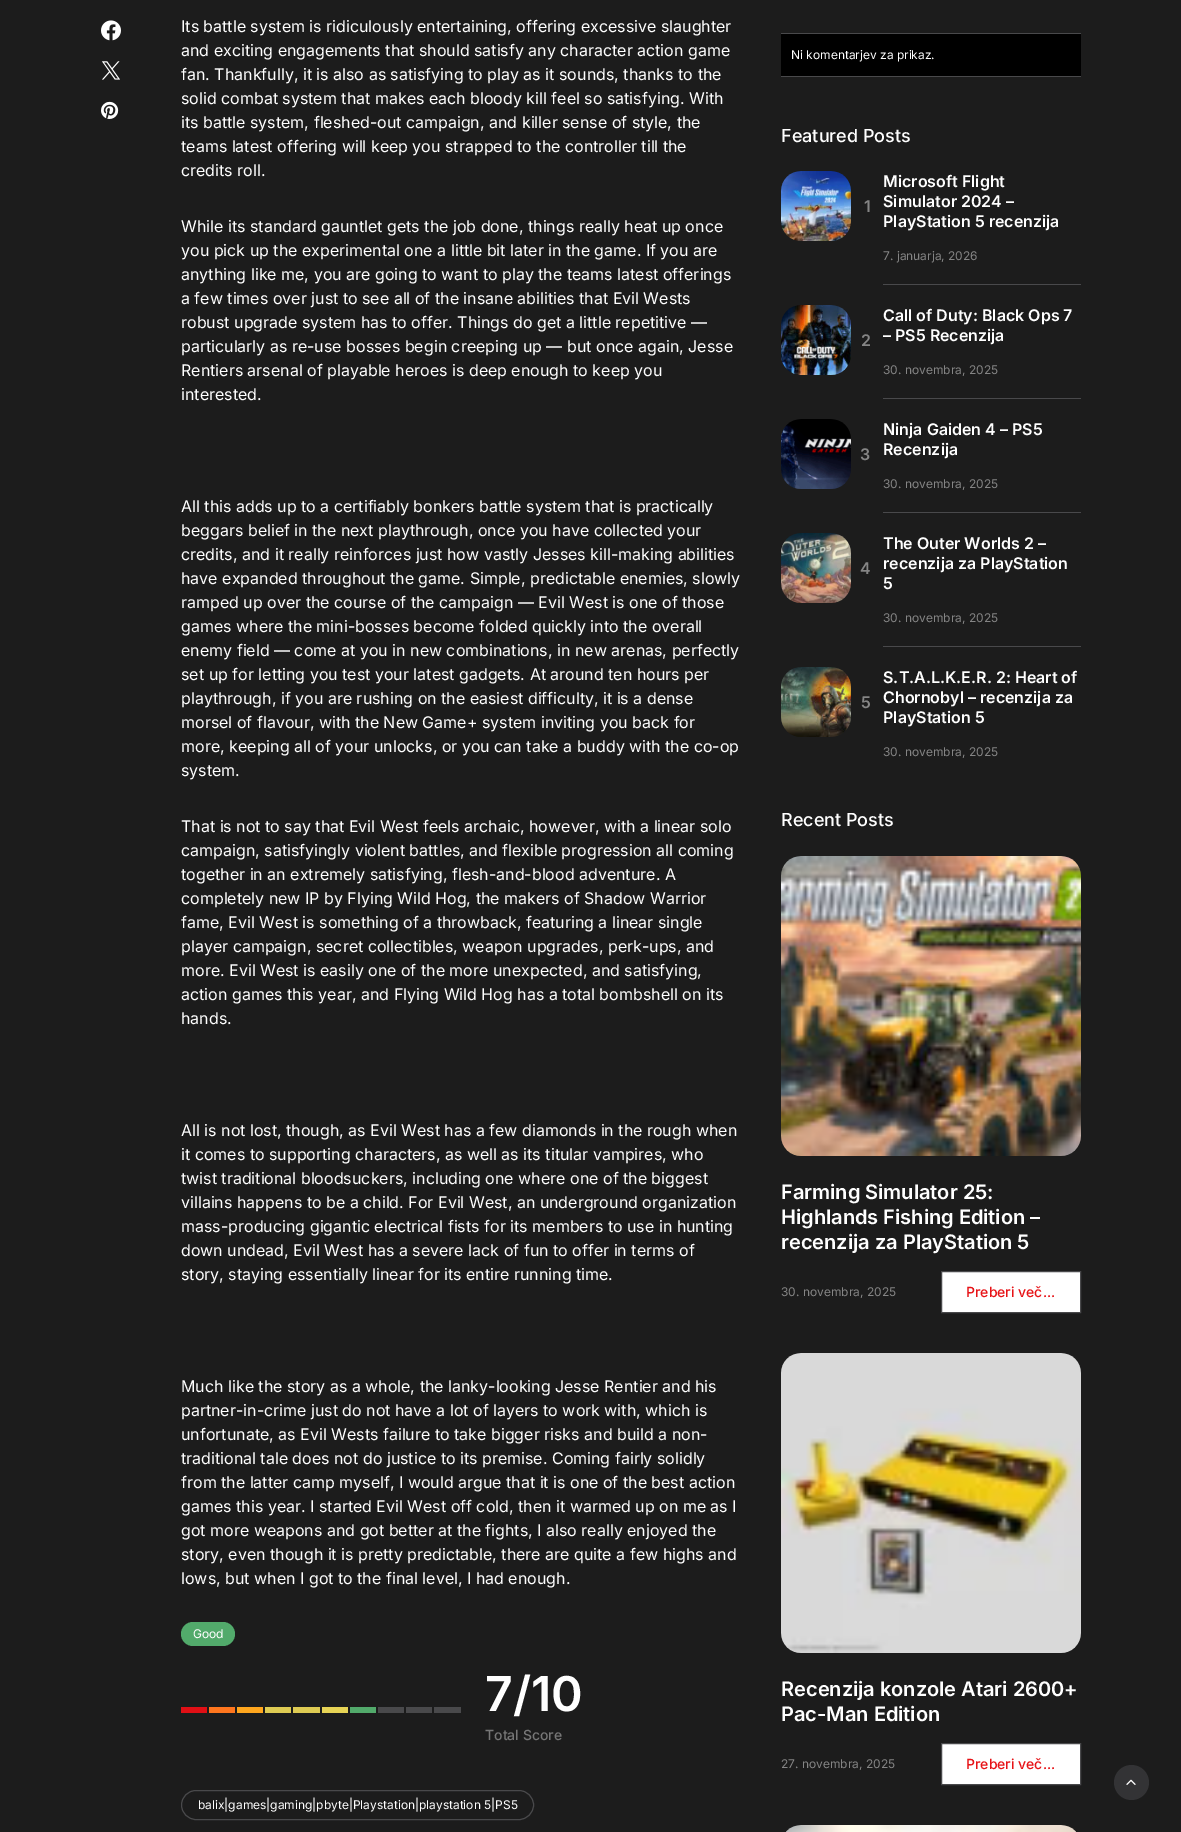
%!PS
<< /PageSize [1181 1832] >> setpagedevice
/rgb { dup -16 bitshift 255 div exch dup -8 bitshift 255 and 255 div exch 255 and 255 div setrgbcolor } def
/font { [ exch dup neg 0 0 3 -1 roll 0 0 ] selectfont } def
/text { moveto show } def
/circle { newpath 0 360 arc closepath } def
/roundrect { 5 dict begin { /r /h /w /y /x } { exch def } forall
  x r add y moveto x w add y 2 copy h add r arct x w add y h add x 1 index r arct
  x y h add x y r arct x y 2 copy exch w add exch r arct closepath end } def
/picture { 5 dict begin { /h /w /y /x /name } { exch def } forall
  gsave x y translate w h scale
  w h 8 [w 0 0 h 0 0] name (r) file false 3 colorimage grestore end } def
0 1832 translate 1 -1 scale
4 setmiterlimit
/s1 { /Inter-Regular 16 font 16#FFFFFF rgb } def
/s2 { /Inter-Regular 12 font 16#FFFFFF rgb } def
/s3 { /Inter-SemiBold 48 font 16#FFFFFF rgb } def
/s4 { /Inter-Medium 14 font 16#777777 rgb } def
/s5 { /Inter-Medium 18 font 16#FFFFFF rgb } def
/s6 { /Inter-SemiBold 16 font 16#858585 rgb } def
/s7 { /Inter-SemiBold 16 font 16#FFFFFF rgb } def
/s8 { /Inter-Regular 12 font 16#858585 rgb } def
/s9 { /Inter-SemiBold 20 font 16#FFFFFF rgb } def
/s10 { /Inter-Medium 14 font 16#E71216 rgb } def
16#1C1C1C rgb
0 0 1181 1832 rectfill
(pic1.raw) 101 20 20 21 picture
(pic2.raw) 102 61 18 19 picture
(pic3.raw) 101 101 18 18 picture
s1
(Its battle system is ridiculously entertaining, offering excessive slaughter) 181 32 text
(and exciting engagements that should satisfy any character action game) 181 56 text
(fan. Thankfully, it is also as satisfying to play as it sounds, thanks to the) 181 80 text
(solid combat system that makes each bloody kill feel so satisfying. With) 181 104 text
(its battle system, fleshed-out campaign, and killer sense of style, the) 181 128 text
(teams latest offering will keep you strapped to the controller till the) 181 152 text
(credits roll.) 181 176 text
(While its standard gauntlet gets the job done, things really heat up once) 181 232 text
(you pick up the experimental one a little bit later in the game. If you are) 181 256 text
(anything like me, you are going to want to play the teams latest offerings) 181 280 text
(a few times over just to see all of the insane abilities that Evil Wests) 181 304 text
(robust upgrade system has to offer. Things do get a little repetitive —) 181 328 text
(particularly as re-use bosses begin creeping up — but once again, Jesse) 181 352 text
(Rentiers arsenal of playable heroes is deep enough to keep you) 181 376 text
(interested.) 181 400 text
(All this adds up to a certifiably bonkers battle system that is practically) 181 512 text
(beggars belief in the next playthrough, once you have collected your) 181 536 text
(credits, and it really reinforces just how vastly Jesses kill-making abilities) 181 560 text
(have expanded throughout the game. Simple, predictable enemies, slowly) 181 584 text
(ramped up over the course of the campaign — Evil West is one of those) 181 608 text
(games where the mini-bosses become folded quickly into the overall) 181 632 text
(enemy field — come at you in new combinations, in new arenas, perfectly) 181 656 text
(set up for letting you test your latest gadgets. At around ten hours per) 181 680 text
(playthrough, if you are rushing on the easiest difficulty, it is a dense) 181 704 text
(morsel of flavour, with the New Game+ system inviting you back for) 181 728 text
(more, keeping all of your unlocks, or you can take a buddy with the co-op) 181 752 text
(system.) 181 776 text
(That is not to say that Evil West feels archaic, however, with a linear solo) 181 832 text
(campaign, satisfyingly violent battles, and flexible progression all coming) 181 856 text
(together in an extremely satisfying, flesh-and-blood adventure. A) 181 880 text
(completely new IP by Flying Wild Hog, the makers of Shadow Warrior) 181 904 text
(fame, Evil West is something of a throwback, featuring a linear single) 181 928 text
(player campaign, secret collectibles, weapon upgrades, perk-ups, and) 181 952 text
(more. Evil West is easily one of the more unexpected, and satisfying,) 181 976 text
(action games this year, and Flying Wild Hog has a total bombshell on its) 181 1000 text
(hands.) 181 1024 text
(All is not lost, though, as Evil West has a few diamonds in the rough when) 181 1136 text
(it comes to supporting characters, as well as its titular vampires, who) 181 1160 text
(twist traditional bloodsuckers, including one where one of the biggest) 181 1184 text
(villains happens to be a child. For Evil West, an underground organization) 181 1208 text
(mass-producing gigantic electrical fists for its members to use in hunting) 181 1232 text
(down undead, Evil West has a severe lack of fun to offer in terms of) 181 1256 text
(story, staying essentially linear for its entire running time.) 181 1280 text
(Much like the story as a whole, the lanky-looking Jesse Rentier and his) 181 1392 text
(partner-in-crime just do not have a lot of layers to work with, which is) 181 1416 text
(unfortunate, as Evil Wests failure to take bigger risks and build a non-) 181 1440 text
(traditional tale does not do justice to its premise. Coming fairly solidly) 181 1464 text
(from the latter camp myself, I would argue that it is one of the best action) 181 1488 text
(games this year. I started Evil West off cold, then it warmed up on me as I) 181 1512 text
(got more weapons and got better at the fights, I also really enjoyed the) 181 1536 text
(story, even though it is pretty predictable, there are quite a few highs and) 181 1560 text
(lows, but when I got to the final level, I had enough.) 181 1584 text
16#52AA6B rgb
181 1622 54 24 12 roundrect fill
s2
(Good) 193 1638 text
16#E00F15 rgb
181 1707 26 6 rectfill
16#FE761E rgb
209 1707 26 6 rectfill
16#FFA61E rgb
237 1707 26 6 rectfill
16#DECB53 rgb
265 1707 26 6 rectfill
293 1707 27 6 rectfill
16#E7D456 rgb
322 1707 26 6 rectfill
16#52AA6B rgb
350 1707 26 6 rectfill
16#49494B rgb
378 1707 26 6 rectfill
406 1707 26 6 rectfill
434 1707 27 6 rectfill
s3
(7/10) 485 1711 text
s4
(Total Score) 485 1740 text
16#49494B rgb
181.5 1790.5 352 29 14.5 roundrect stroke
s2
(balix|games|gaming|pbyte|Playstation|playstation 5|PS5) 198 1809 text
16#000000 rgb
781 34 300 42 rectfill
16#49494B rgb
781 33 300 1 rectfill
781 76 300 1 rectfill
s2
(Ni komentarjev za prikaz.) 791 59 text
s5
(Featured Posts) 781 142 text
(pic4.raw) 781 171 70 70 picture
s6
(1) 864 212 text
s7
(Microsoft Flight) 883 187 text
(Simulator 2024 –) 883 207 text
(PlayStation 5 recenzija) 883 227 text
s8
(7. januarja, 2026) 883 260 text
16#49494B rgb
883 284 198 1 rectfill
(pic5.raw) 781 305 70 70 picture
s6
(2) 861 346 text
s7
(Call of Duty: Black Ops 7) 883 321 text
(– PS5 Recenzija) 883 341 text
s8
(30. novembra, 2025) 883 374 text
16#49494B rgb
883 398 198 1 rectfill
(pic6.raw) 781 419 70 70 picture
s6
(3) 860 460 text
s7
(Ninja Gaiden 4 – PS5) 883 435 text
(Recenzija) 883 455 text
s8
(30. novembra, 2025) 883 488 text
16#49494B rgb
883 512 198 1 rectfill
(pic7.raw) 781 533 70 70 picture
s6
(4) 860 574 text
s7
(The Outer Worlds 2 –) 883 549 text
(recenzija za PlayStation) 883 569 text
(5) 883 589 text
s8
(30. novembra, 2025) 883 622 text
16#49494B rgb
883 646 198 1 rectfill
(pic8.raw) 781 667 70 70 picture
s6
(5) 861 708 text
s7
(S.T.A.L.K.E.R. 2: Heart of) 883 683 text
(Chornobyl – recenzija za) 883 703 text
(PlayStation 5) 883 723 text
s8
(30. novembra, 2025) 883 756 text
s5
(Recent Posts) 781 826 text
(pic9.raw) 781 856 300 300 picture
s9
(Farming Simulator 25:) 781 1199 text
(Highlands Fishing Edition –) 781 1224 text
(recenzija za PlayStation 5) 781 1249 text
s8
(30. novembra, 2025) 781 1296 text
16#FFFFFF rgb
941.5 1271.5 moveto 1080.5 1271.5 lineto 1080.5 1312.5 lineto 941.5 1312.5 lineto closepath gsave fill grestore
16#49494B rgb
stroke
s10
(Preberi več...) 966 1297 text
(pic10.raw) 781 1353 300 300 picture
s9
(Recenzija konzole Atari 2600+) 781 1696 text
(Pac-Man Edition) 781 1721 text
s8
(27. novembra, 2025) 781 1768 text
16#FFFFFF rgb
941.5 1743.5 moveto 1080.5 1743.5 lineto 1080.5 1784.5 lineto 941.5 1784.5 lineto closepath gsave fill grestore
16#49494B rgb
stroke
s10
(Preberi več...) 966 1769 text
(pic11.raw) 786 1825 290 7 picture
16#333335 rgb
1131.5 1782.5 17.5 circle fill
(pic12.raw) 1126 1779 10 6 picture
showpage
